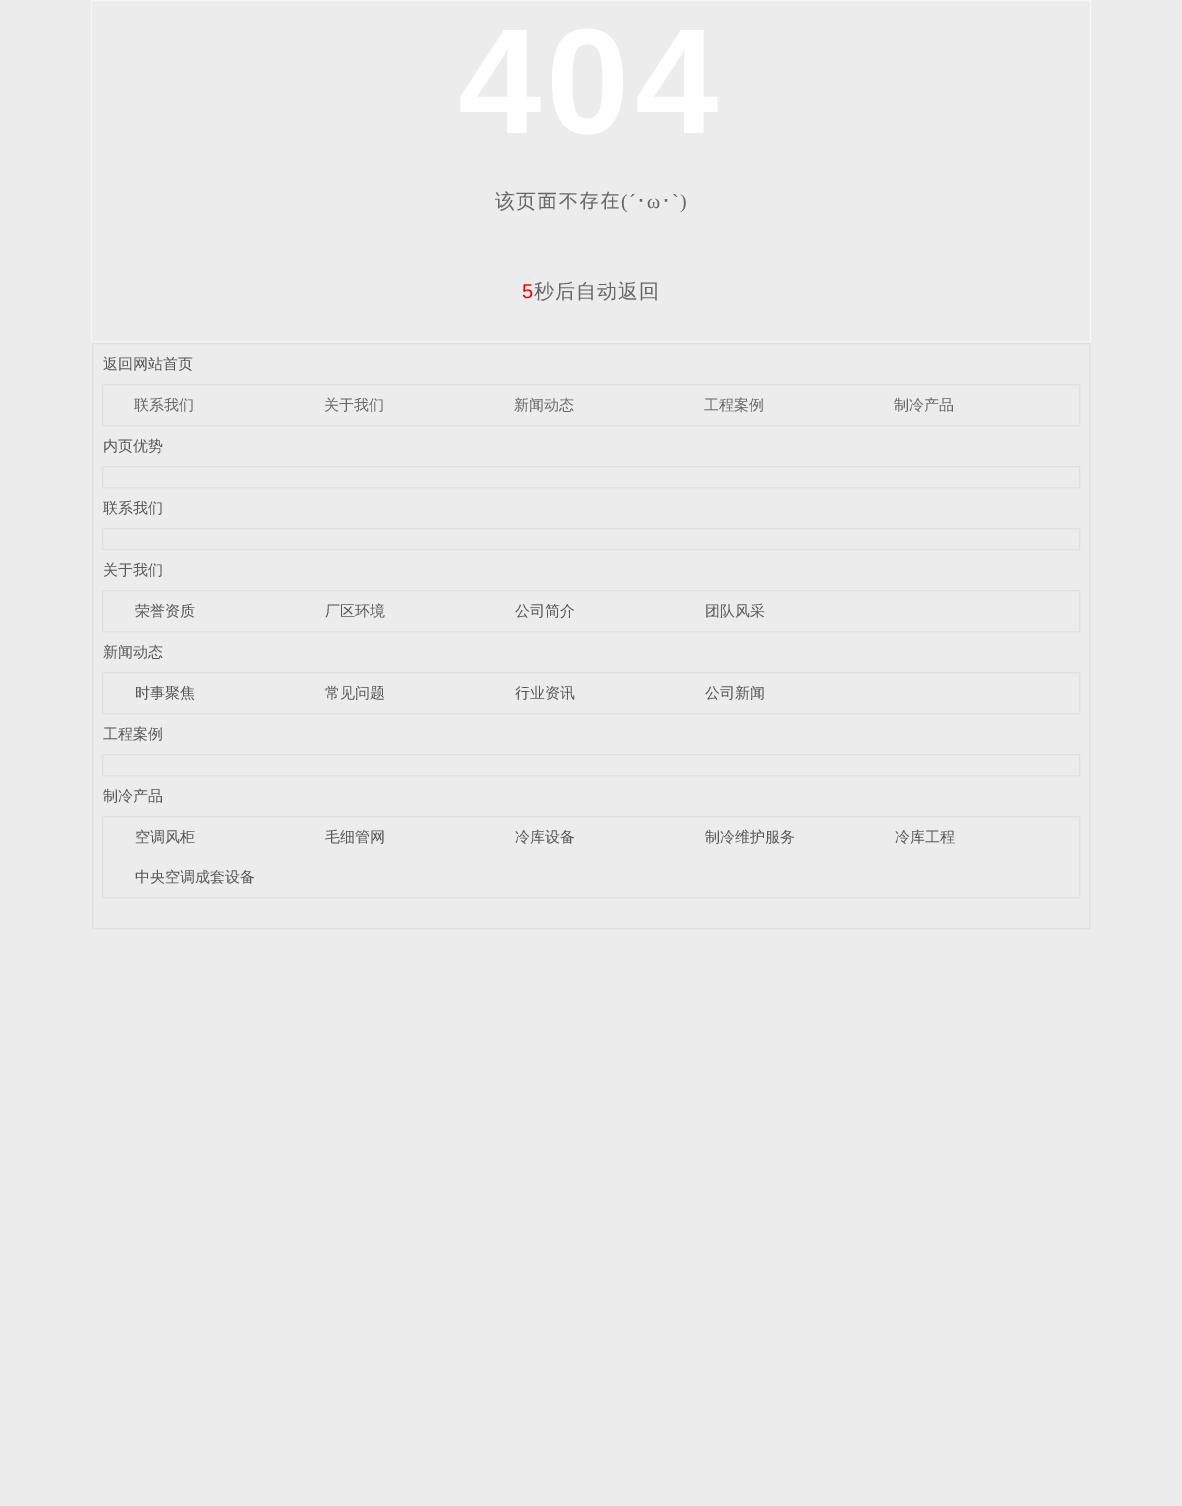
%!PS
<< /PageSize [1182 1506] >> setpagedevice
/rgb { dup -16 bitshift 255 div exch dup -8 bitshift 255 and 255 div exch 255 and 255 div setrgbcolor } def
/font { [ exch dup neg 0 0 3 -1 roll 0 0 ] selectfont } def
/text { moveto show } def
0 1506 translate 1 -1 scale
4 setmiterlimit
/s1 { /WenQuanYiZenHei-Medium 15 font 16#565656 rgb } def
/s2 { /WenQuanYiZenHei-Medium 15 font 16#666666 rgb } def
16#ECECEC rgb
0 0 1182 1506 rectfill
16#F7F7F7 rgb
91.5 0.5 999 341 rectstroke
/LiberationSans-Bold 150 font
16#FFFFFF rgb
458 133 moveto 5 0 (404) ashow
/WenQuanYiZenHei-Medium 20 font
16#666666 rgb
495 208 moveto 1 0 (该页) ashow
/IPAGothic-Regular 20 font
537 208 moveto 1 0 (面不存在) ashow
/LiberationSerif-Regular 20 font
621 208 moveto 1 0 (\(´) ashow
/IPAGothic-Regular 20 font
636 208 moveto 1 0 (･) ashow
/LiberationSerif-Regular 20 font
647 208 moveto 1 0 (ω) ashow
/IPAGothic-Regular 20 font
661 208 moveto 1 0 (･) ashow
/LiberationSerif-Regular 20 font
672 208 moveto 1 0 (`\)) ashow
/LiberationSans-Regular 20 font
16#FF0000 rgb
522 298 moveto 1 0 (5) ashow
/WenQuanYiZenHei-Medium 20 font
16#666666 rgb
534 298 moveto 1 0 (秒后自动返回) ashow
16#E0E0E0 rgb
92.5 343.5 997 585 rectstroke
s1
(返回网站首页) 103 369 text
16#E0E0E0 rgb
102.5 384.5 977 41 rectstroke
s2
(联系我们) 134 410 text
(关于我们) 324 410 text
(新闻动态) 514 410 text
(工程案例) 704 410 text
(制冷产品) 894 410 text
s1
(内页优势) 103 451 text
16#E0E0E0 rgb
102.5 466.5 977 21 rectstroke
s1
(联系我们) 103 513 text
16#E0E0E0 rgb
102.5 528.5 977 21 rectstroke
s1
(关于我们) 103 575 text
16#E0E0E0 rgb
102.5 590.5 977 41 rectstroke
s1
(荣誉资质) 135 616 text
(厂区环境) 325 616 text
(公司简介) 515 616 text
(团队风采) 705 616 text
(新闻动态) 103 657 text
16#E0E0E0 rgb
102.5 672.5 977 41 rectstroke
s1
(时事聚焦) 135 698 text
(常见问题) 325 698 text
(行业资讯) 515 698 text
(公司新闻) 705 698 text
(工程案例) 103 739 text
16#E0E0E0 rgb
102.5 754.5 977 21 rectstroke
s1
(制冷产品) 103 801 text
16#E0E0E0 rgb
102.5 816.5 977 81 rectstroke
s1
(空调风柜) 135 842 text
(毛细管网) 325 842 text
(冷库设备) 515 842 text
(制冷维护服务) 705 842 text
(冷库工程) 895 842 text
(中央空调成套设备) 135 882 text
showpage
